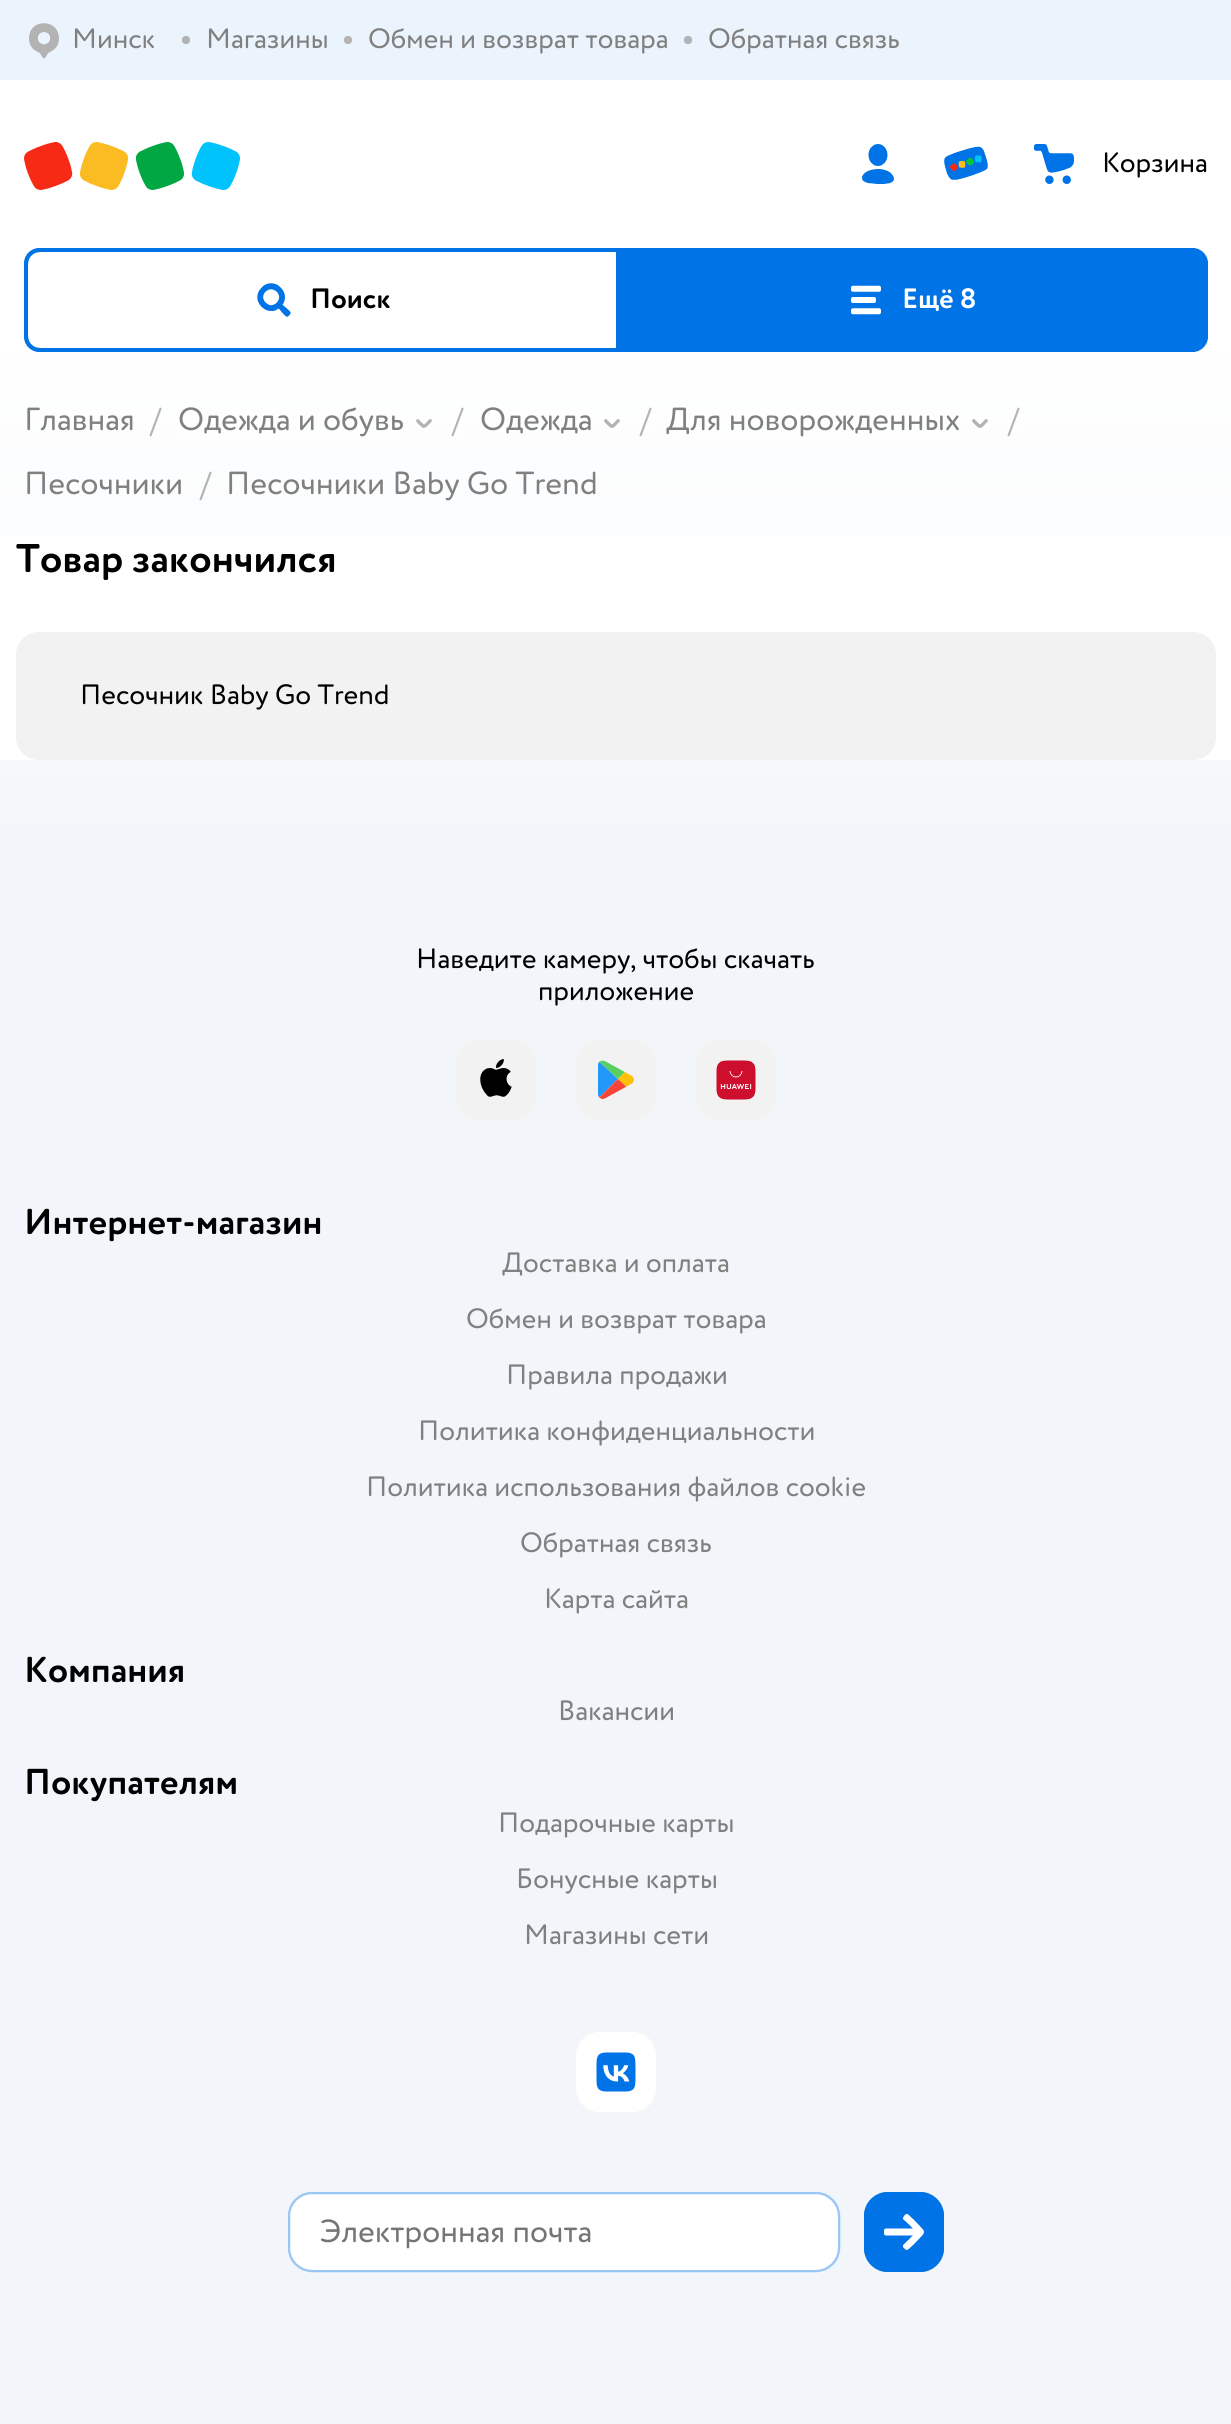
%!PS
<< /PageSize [1231 2424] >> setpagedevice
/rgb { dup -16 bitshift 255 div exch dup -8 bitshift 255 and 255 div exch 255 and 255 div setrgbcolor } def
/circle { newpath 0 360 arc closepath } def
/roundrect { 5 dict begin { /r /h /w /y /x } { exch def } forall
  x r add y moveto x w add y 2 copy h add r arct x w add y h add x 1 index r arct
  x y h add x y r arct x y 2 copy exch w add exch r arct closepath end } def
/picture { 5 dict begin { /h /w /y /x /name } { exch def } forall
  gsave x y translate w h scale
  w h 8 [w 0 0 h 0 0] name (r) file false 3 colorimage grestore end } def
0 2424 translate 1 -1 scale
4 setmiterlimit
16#F2F6FA rgb
0 0 1231 2424 rectfill
16#FFFFFF rgb
0 80 1231 272 rectfill
16#EBF4FD rgb
0 0 1231 80 rectfill
(pic1.raw) 29 23 30 36 picture
(pic2.raw) 74 28 80 21 picture
16#B3B3B3 rgb
186 40 4 circle fill
(pic3.raw) 208 28 119 21 picture
348 40 4 circle fill
(pic4.raw) 369 28 298 26 picture
688 40 4 circle fill
(pic5.raw) 709 28 190 26 picture
(pic6.raw) 24 142 216 48 picture
(pic7.raw) 862 144 32 40 picture
(pic8.raw) 944 146 44 34 picture
(pic9.raw) 1034 144 40 40 picture
(pic10.raw) 1104 152 103 26 picture
16#0073E6 rgb
40 248 moveto 616 248 lineto 616 352 lineto 40 352 lineto 31 352 24 345 24 336 curveto 24 264 lineto 24 255 31 248 40 248 curveto closepath 40 252 moveto 616 252 lineto 616 348 lineto 40 348 lineto 33 348 28 343 28 336 curveto 28 264 lineto 28 257 33 252 40 252 curveto closepath eofill
(pic11.raw) 257 283 34 34 picture
(pic12.raw) 312 288 78 21 picture
616 248 moveto 1192 248 lineto 1201 248 1208 255 1208 264 curveto 1208 336 lineto 1208 345 1201 352 1192 352 curveto 616 352 lineto closepath fill
(pic13.raw) 851 285 30 30 picture
(pic14.raw) 904 288 71 23 picture
gsave 0 352 moveto 1231 352 lineto 1231 824 lineto 0 824 lineto closepath clip newpath
<< /ShadingType 2 /ColorSpace /DeviceRGB /Coords [616 352 616 952] /Extend [true true] /Function << /FunctionType 2 /Domain [0 1] /C0 [1 1 1] /C1 [0.949 0.965 0.98] /N 1 >> >> shfill grestore
(pic15.raw) 27 407 106 24 picture
(pic16.raw) 149 407 13 30 picture
(pic17.raw) 179 407 224 30 picture
(pic18.raw) 416 419 16 9 picture
(pic16.raw) 451 407 13 30 picture
(pic19.raw) 481 407 110 27 picture
(pic18.raw) 604 419 16 9 picture
(pic16.raw) 639 407 13 30 picture
(pic20.raw) 666 407 293 30 picture
(pic18.raw) 972 419 16 9 picture
(pic16.raw) 1007 407 13 30 picture
(pic21.raw) 27 471 154 24 picture
(pic22.raw) 199 471 13 30 picture
(pic23.raw) 229 471 367 30 picture
16#FFFFFF rgb
0 536 1231 224 rectfill
(pic24.raw) 16 544 319 36 picture
16#F2F2F2 rgb
16 632 1200 128 24 roundrect fill
(pic25.raw) 82 684 306 26 picture
(pic26.raw) 418 948 396 26 picture
(pic27.raw) 540 987 153 19 picture
456 1040 80 80 24 roundrect fill
(pic28.raw) 480 1059 32 38 picture
576 1040 80 80 24 roundrect fill
(pic29.raw) 598 1060 36 39 picture
696 1040 80 80 24 roundrect fill
(pic30.raw) 716 1060 40 40 picture
(pic31.raw) 27 1208 294 34 picture
(pic32.raw) 502 1252 227 24 picture
(pic33.raw) 467 1308 298 26 picture
(pic34.raw) 508 1364 218 26 picture
(pic35.raw) 420 1420 394 26 picture
(pic36.raw) 368 1476 497 26 picture
(pic37.raw) 521 1532 190 26 picture
(pic38.raw) 546 1588 142 26 picture
(pic39.raw) 27 1656 156 27 picture
(pic40.raw) 560 1700 113 21 picture
(pic41.raw) 27 1768 209 34 picture
(pic42.raw) 500 1812 233 26 picture
(pic43.raw) 518 1868 198 26 picture
(pic44.raw) 526 1924 182 21 picture
16#FFFFFF rgb
576 2032 80 80 24 roundrect fill
(pic45.raw) 596 2052 40 40 picture
289 2193 550 78 23 roundrect gsave fill grestore
16#99C7F5 rgb
2 setlinewidth
stroke
(pic46.raw) 321 2219 270 30 picture
16#0073E6 rgb
864 2192 80 80 24 roundrect fill
(pic47.raw) 884 2214 40 36 picture
showpage
